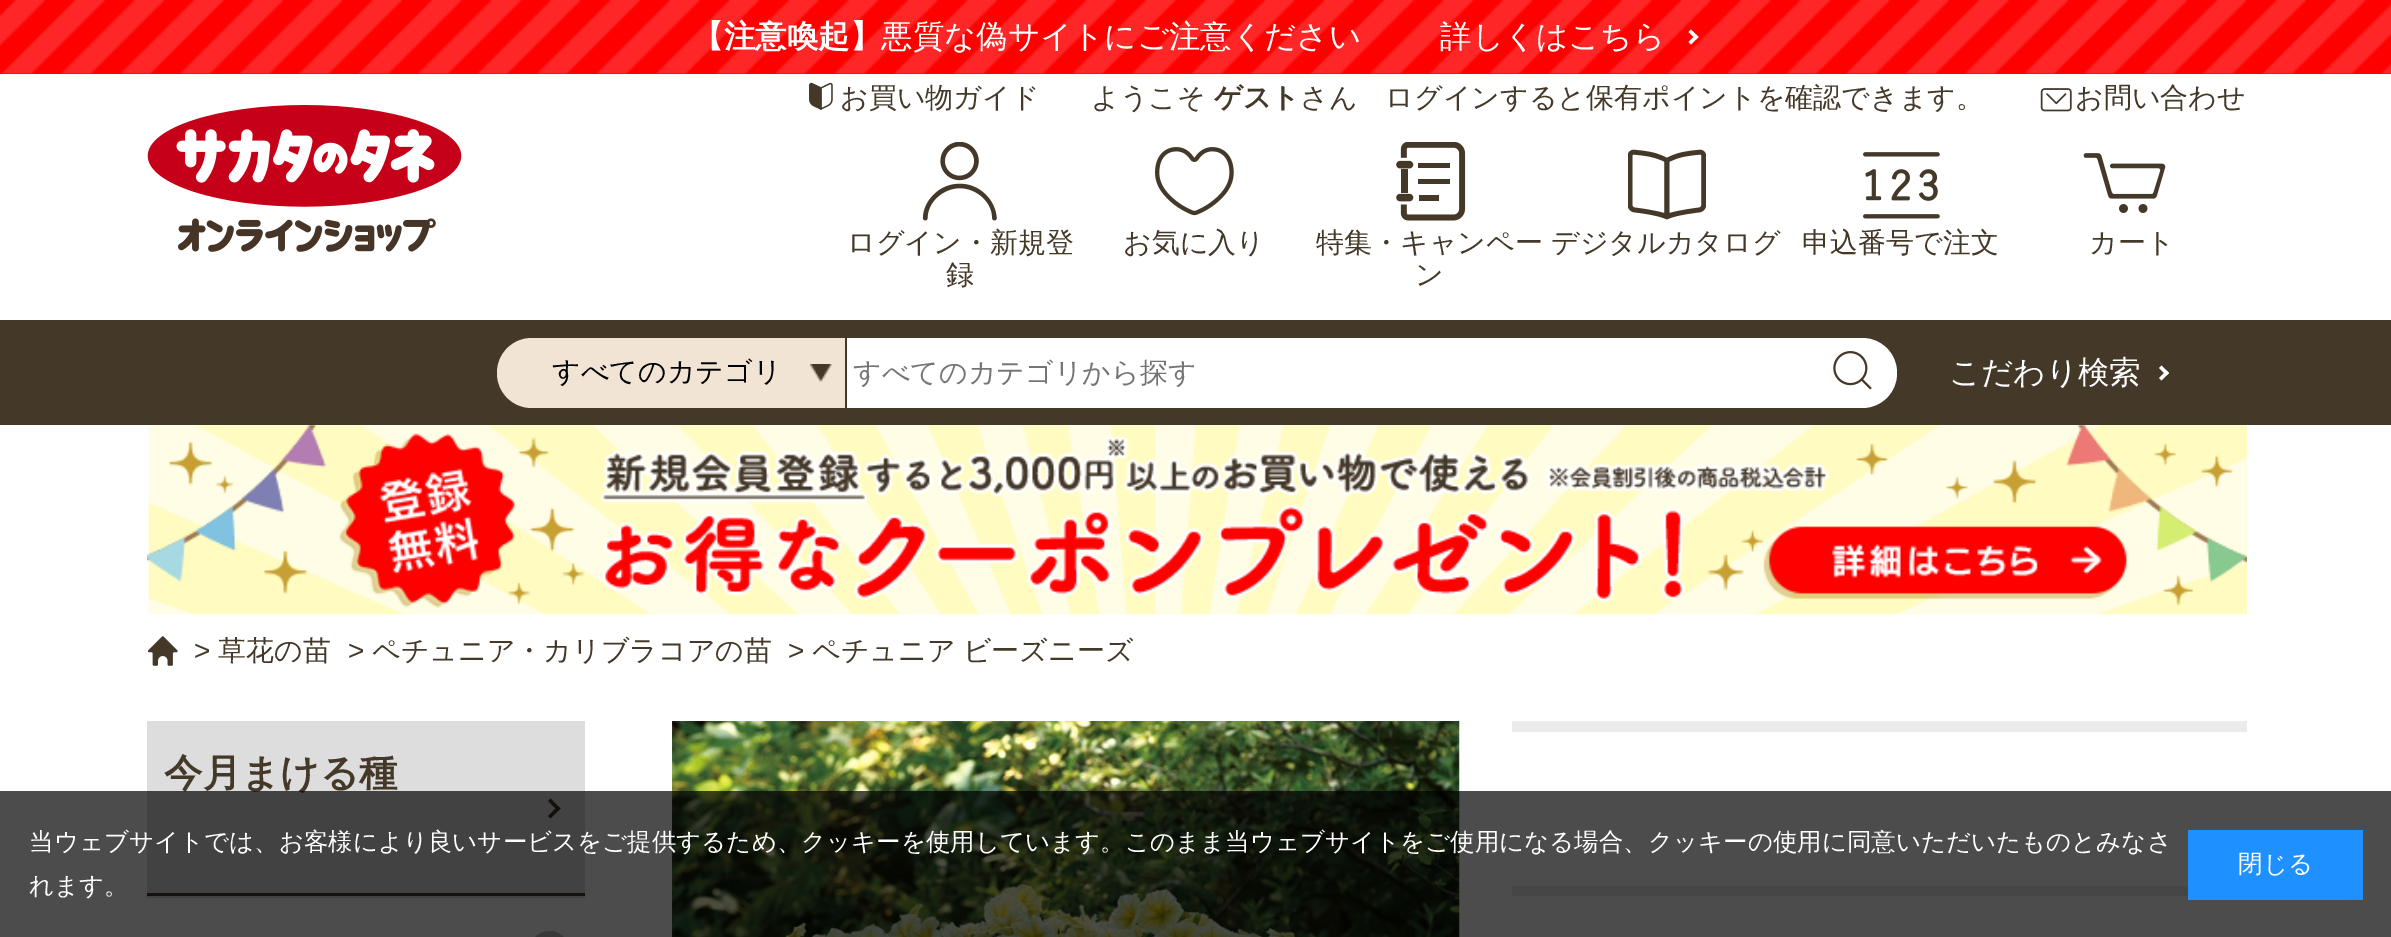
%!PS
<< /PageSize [2391 937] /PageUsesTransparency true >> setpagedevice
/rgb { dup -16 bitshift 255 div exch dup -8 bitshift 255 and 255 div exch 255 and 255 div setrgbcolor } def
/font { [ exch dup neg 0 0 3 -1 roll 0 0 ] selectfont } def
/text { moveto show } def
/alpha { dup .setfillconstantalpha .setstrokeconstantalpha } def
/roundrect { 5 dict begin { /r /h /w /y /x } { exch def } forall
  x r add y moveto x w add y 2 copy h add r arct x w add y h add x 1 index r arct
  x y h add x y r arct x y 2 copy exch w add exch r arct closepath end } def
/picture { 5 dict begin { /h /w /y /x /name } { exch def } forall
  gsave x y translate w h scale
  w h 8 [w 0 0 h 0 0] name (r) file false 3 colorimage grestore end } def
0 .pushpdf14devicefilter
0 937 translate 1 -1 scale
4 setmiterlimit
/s1 { /WenQuanYiZenHei-Bold 31.5 font 16#FFFFFF rgb } def
/s2 { /WenQuanYiZenHei-Medium 31.5 font 16#FFFFFF rgb } def
/s3 { /WenQuanYiZenHei-Medium 28 font 16#443829 rgb } def
/s4 { /WenQuanYiZenHei-Bold 28 font 16#443829 rgb } def
/s5 { /WenQuanYiZenHei-Medium 28 font 16#000000 rgb } def
/s6 { /WenQuanYiZenHei-Medium 28 font 16#757575 rgb } def
/s7 { /LiberationSans-Regular 28 font 16#443829 rgb } def
/s8 { /WenQuanYiZenHei-Bold 38.5 font 16#443829 rgb } def
/s9 { /WenQuanYiZenHei-Medium 24.5 font 16#FFFFFF rgb } def
16#FFFFFF rgb
0 0 2391 937 rectfill
16#FE0000 rgb
0 73 2391 1 rectfill
(pic1.raw) 0 0 2391 74 picture
s1
(【注意喚起】) 692 47 text
s2
(悪質な偽サイトにご注意ください) 881 47 text
(詳しくはこちら) 1440 47 text
1688.5 32 moveto 1691 29.5 lineto 1698.5 37 lineto 1696 39.5 lineto closepath fill
1688.5 42 moveto 1696 34.5 lineto 1698.5 37 lineto 1691 44.5 lineto closepath fill
(pic2.raw) 809 82 24 28 picture
s3
(お買い物ガイド) 840 107 text
(ようこそ) 1091 107 text
s4
(ゲスト) 1214 107 text
s3
(さん　ログインすると保有ポイントを確認できます。) 1300 107 text
(pic3.raw) 2040 88 32 24 picture
(お問い合わせ) 2075 107 text
(pic4.raw) 147 105 315 147 picture
(pic5.raw) 1628 149 78 71 picture
(pic6.raw) 922 142 75 79 picture
(ログイン・新規登) 847 252 text
(録) 946 284 text
(pic7.raw) 1155 147 79 69 picture
(お気に入り) 1123 252 text
(pic8.raw) 1396 142 70 79 picture
(特集・キャンペー デジタルカタログ) 1316 252 text
(ン) 1415 284 text
(pic9.raw) 1863 152 77 67 picture
(申込番号で注文) 1802 252 text
(pic10.raw) 2083 153 83 60 picture
(カート) 2089 252 text
0 320 2391 105 rectfill
16#F2E4D4 rgb
532 338 moveto 847 338 lineto 847 408 lineto 532 408 lineto 512.5 408 497 392.5 497 373 curveto 497 353.5 512.5 338 532 338 curveto closepath fill
(pic11.raw) 810 364 22 18 picture
16#443829 rgb
845 338 2 70 rectfill
s5
(すべてのカテゴリ) 552 381 text
16#FFFFFF rgb
847 338 963 70 rectfill
s6
(すべてのカテゴリから探す) 853 382 text
16#FFFFFF rgb
1810 338 moveto 1862 338 lineto 1881.5 338 1897 353.5 1897 373 curveto 1897 392.5 1881.5 408 1862 408 curveto 1810 408 lineto closepath fill
(pic12.raw) 1833 351 39 39 picture
s2
(こだわり検索) 1949 383 text
2159 368 moveto 2161.5 365.5 lineto 2169 373 lineto 2166.5 375.5 lineto closepath fill
2159 378 moveto 2166.5 370.5 lineto 2169 373 lineto 2161.5 380.5 lineto closepath fill
(pic13.raw) 147 425 2100 190 picture
(pic14.raw) 147 636 31 30 picture
s7
(>) 194 660 text
s3
(草花の苗) 218 660 text
s7
(>) 348 660 text
s3
(ペチュニア・カリブラコアの苗) 372 660 text
s7
(>) 788 660 text
/WenQuanYiZenHei-Medium 28 font
812 660 moveto -1 0 32 (ペチュニア ビーズニーズ) widthshow
16#DDDDDD rgb
147 721 438 172 rectfill
16#443829 rgb
147 893 438 3 rectfill
s8
(今月まける種) 164 786 text
548 801 moveto 550.5 798.5 lineto 560.5 808.5 lineto 558 811 lineto closepath fill
548 816 moveto 558 806 lineto 560.5 808.5 lineto 550.5 818.5 lineto closepath fill
16#DDDDDD rgb
147 896 438 2 rectfill
16#BBBBBB rgb
530 931 39 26 19.5 roundrect fill
(pic15.raw) 672 721 788 216 picture
16#EBEBEB rgb
1512 721 735 11 rectfill
1512 886 676 10 rectfill
0.7 alpha
16#000000 rgb
0 791 2391 146 rectfill
1 alpha
s9
(当ウェブサイトでは、お客様により良いサービスをご提供するため、クッキーを使用しています。このまま当ウェブサイトをご使用になる場合、クッキーの使用に同意いただいたものとみなさ) 29 850 text
(れます。) 29 894 text
16#1E90FF rgb
2188 830 175 70 rectfill
s9
(閉じる) 2238 872 text
.poppdf14devicefilter showpage
